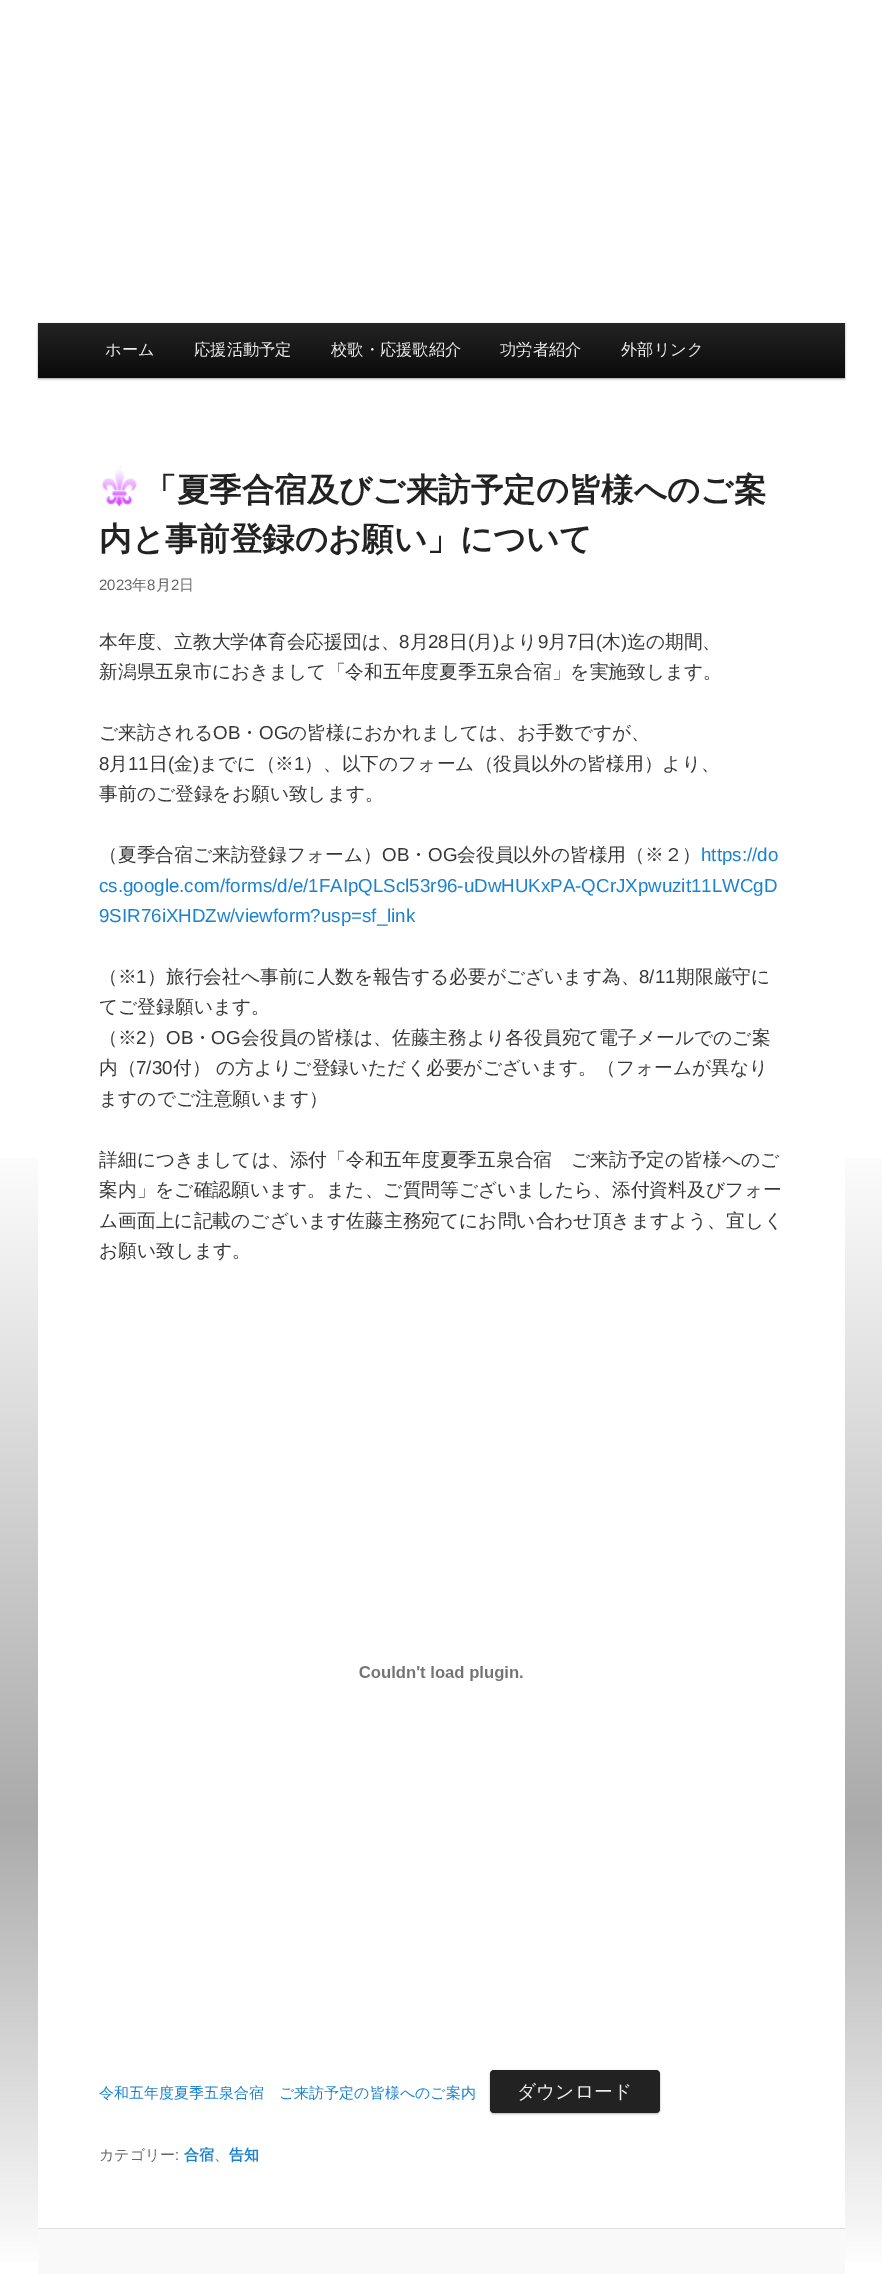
%!PS
<< /PageSize [882 2274] /PageUsesTransparency true >> setpagedevice
/rgb { dup -16 bitshift 255 div exch dup -8 bitshift 255 and 255 div exch 255 and 255 div setrgbcolor } def
/font { [ exch dup neg 0 0 3 -1 roll 0 0 ] selectfont } def
/text { moveto show } def
/alpha { dup .setfillconstantalpha .setstrokeconstantalpha } def
/roundrect { 5 dict begin { /r /h /w /y /x } { exch def } forall
  x r add y moveto x w add y 2 copy h add r arct x w add y h add x 1 index r arct
  x y h add x y r arct x y 2 copy exch w add exch r arct closepath end } def
/shadow { 12 dict begin { /a /b /q /h /w /y /x } { exch def } forall gsave /was 0 def
  9 -2 -9 { dup b mul 4 div /e exch def 1 sub .425 mul 2.718 exch exp 1 add a .99 .min exch div /now exch def
    1 1 now sub 1 was sub div sub alpha /was now def
    w h .min e 2 mul add 0 gt { x e sub y e sub w e 2 mul add h e 2 mul add
      q e add b .6 mul add w h .min 2 div e add .min 0 .max roundrect fill } if } for grestore end } def
/picture { 5 dict begin { /h /w /y /x /name } { exch def } forall
  gsave x y translate w h scale
  w h 8 [w 0 0 h 0 0] name (r) file false 3 colorimage grestore end } def
0 .pushpdf14devicefilter
0 2274 translate 1 -1 scale
4 setmiterlimit
/s1 { /WenQuanYiZenHei-Medium 16.25 font 16#EEEEEE rgb } def
/s2 { /WenQuanYiZenHei-Bold 32.5 font 16#222222 rgb } def
/s3 { /LiberationSans-Regular 15 font 16#666666 rgb } def
/s4 { /WenQuanYiZenHei-Medium 15 font 16#666666 rgb } def
/s5 { /WenQuanYiZenHei-Medium 18.75 font 16#373737 rgb } def
/s6 { /LiberationSans-Regular 18.75 font 16#373737 rgb } def
/s7 { /LiberationSans-Regular 18.75 font 16#1982D1 rgb } def
/s8 { /WenQuanYiZenHei-Medium 15 font 16#1982D1 rgb } def
/s9 { /WenQuanYiZenHei-Medium 18.75 font 16#EEEEEE rgb } def
/s10 { /WenQuanYiZenHei-Bold 15 font 16#1982D1 rgb } def
16#FFFFFF rgb
0 0 882 2274 rectfill
gsave 0 1158 moveto 882 1158 lineto 882 2262 lineto 0 2262 lineto closepath clip newpath
<< /ShadingType 2 /ColorSpace /DeviceRGB /Coords [441 0 441 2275] /Extend [true true] /Function << /FunctionType 3 /Domain [0 1] /Functions [<< /FunctionType 2 /Domain [0 1] /C0 [1 1 1] /C1 [1 1 1] /N 1 >> << /FunctionType 2 /Domain [0 1] /C0 [1 1 1] /C1 [0.667 0.667 0.667] /N 1 >> << /FunctionType 2 /Domain [0 1] /C0 [0.667 0.667 0.667] /C1 [1 1 1] /N 1 >>] /Bounds [0.5 0.8] /Encode [0 1 0 1 0 1] >> >> shfill grestore
38 1158 807 1070 rectfill
16#000000 rgb
38 324 807 55 0 1 0.4 shadow
gsave 38 323 moveto 845 323 lineto 845 378 lineto 38 378 lineto closepath clip newpath
<< /ShadingType 2 /ColorSpace /DeviceRGB /Coords [441 322 441 378] /Extend [true true] /Function << /FunctionType 2 /Domain [0 1] /C0 [0.145 0.145 0.145] /C1 [0.039 0.039 0.039] /N 1 >> >> shfill grestore
s1
(ホーム) 105 355 text
(応援活動予定) 194 355 text
(校歌・応援歌紹介) 331 355 text
(功労者紹介) 500 355 text
(外部リンク) 621 355 text
(pic1.raw) 102 466 35 41 picture
s2
(「夏季合宿及びご来訪予定の皆様へのご案) 144 501 text
(内と事前登録のお願い」について) 99 550 text
s3
(2023) 99 590 text
s4
(年) 132 590 text
s3
(8) 147 590 text
s4
(月) 156 590 text
s3
(2) 171 590 text
s4
(日) 179 590 text
s5
(本年度、立教大学体育会応援団は、) 99 648 text
s6
(8) 399 648 text
s5
(月) 410 648 text
s6
(28) 428 648 text
s5
(日) 449 648 text
s6
(\() 468 648 text
s5
(月) 474 648 text
s6
(\)) 493 648 text
s5
(より) 499 648 text
s6
(9) 538 648 text
s5
(月) 548 648 text
s6
(7) 567 648 text
s5
(日) 577 648 text
s6
(\() 596 648 text
s5
(木) 602 648 text
s6
(\)) 621 648 text
s5
(迄の期間、) 627 648 text
(新潟県五泉市におきまして「令和五年度夏季五泉合宿」を実施致します。) 99 678 text
(ご来訪される) 99 739 text
s6
(OB) 213 739 text
s5
(・) 240 739 text
s6
(OG) 259 739 text
s5
(の皆様におかれましては、お手数ですが、) 288 739 text
s6
(8) 99 770 text
s5
(月) 109 770 text
s6
(11) 128 770 text
s5
(日) 149 770 text
s6
(\() 168 770 text
s5
(金) 174 770 text
s6
(\)) 193 770 text
s5
(までに（※) 199 770 text
s6
(1) 294 770 text
s5
(）、以下のフォーム（役員以外の皆様用）より、) 304 770 text
(事前のご登録をお願い致します。) 99 800 text
(（夏季合宿ご来訪登録フォーム）) 99 861 text
s6
(OB) 382 861 text
s5
(・) 409 861 text
s6
(OG) 428 861 text
s5
(会役員以外の皆様用（※２）) 457 861 text
s7
(https://do) 701 861 text
(cs.google.com/forms/d/e/1FAIpQLScl53r96-uDwHUKxPA-QCrJXpwuzit11LWCgD) 99 892 text
(9SIR76iXHDZw/viewform?usp=sf_link) 99 922 text
s5
(（※) 99 983 text
s6
(1) 136 983 text
s5
(）旅行会社へ事前に人数を報告する必要がございます為、) 147 983 text
s6
(8/11) 639 983 text
s5
(期限厳守に) 676 983 text
(てご登録願います。) 99 1013 text
(（※) 99 1044 text
s6
(2) 136 1044 text
s5
(）) 147 1044 text
s6
(OB) 166 1044 text
s5
(・) 193 1044 text
s6
(OG) 211 1044 text
s5
(会役員の皆様は、佐藤主務より各役員宛て電子メールでのご案) 241 1044 text
(内（) 99 1074 text
s6
(7/30) 136 1074 text
s5
(付） の方よりご登録いただく必要がございます。（フォームが異なり) 173 1074 text
(ますのでご注意願います）) 99 1105 text
(詳細につきましては、添付「令和五年度夏季五泉合宿　ご来訪予定の皆様へのご) 99 1166 text
(案内」をご確認願います。また、ご質問等ございましたら、添付資料及びフォー) 99 1196 text
(ム画面上に記載のございます佐藤主務宛てにお問い合わせ頂きますよう、宜しく) 99 1227 text
(お願い致します。) 99 1257 text
(pic2.raw) 359 1666 164 15 picture
s8
(令和五年度夏季五泉合宿　ご来訪予定の皆様へのご案内) 99 2098 text
16#000000 rgb
490 2071 170 43 4 1 0.3 shadow
16#222222 rgb
490 2070 170 43 4 roundrect fill
s9
(ダウンロード) 517 2098 text
s4
(カテゴリー) 99 2160 text
s3
(:) 175 2160 text
s10
(合宿) 184 2160 text
s4
(、) 214 2160 text
s10
(告知) 229 2160 text
16#F9F9F9 rgb
38 2229 807 45 rectfill
16#DDDDDD rgb
38 2228 807 1 rectfill
.poppdf14devicefilter showpage
